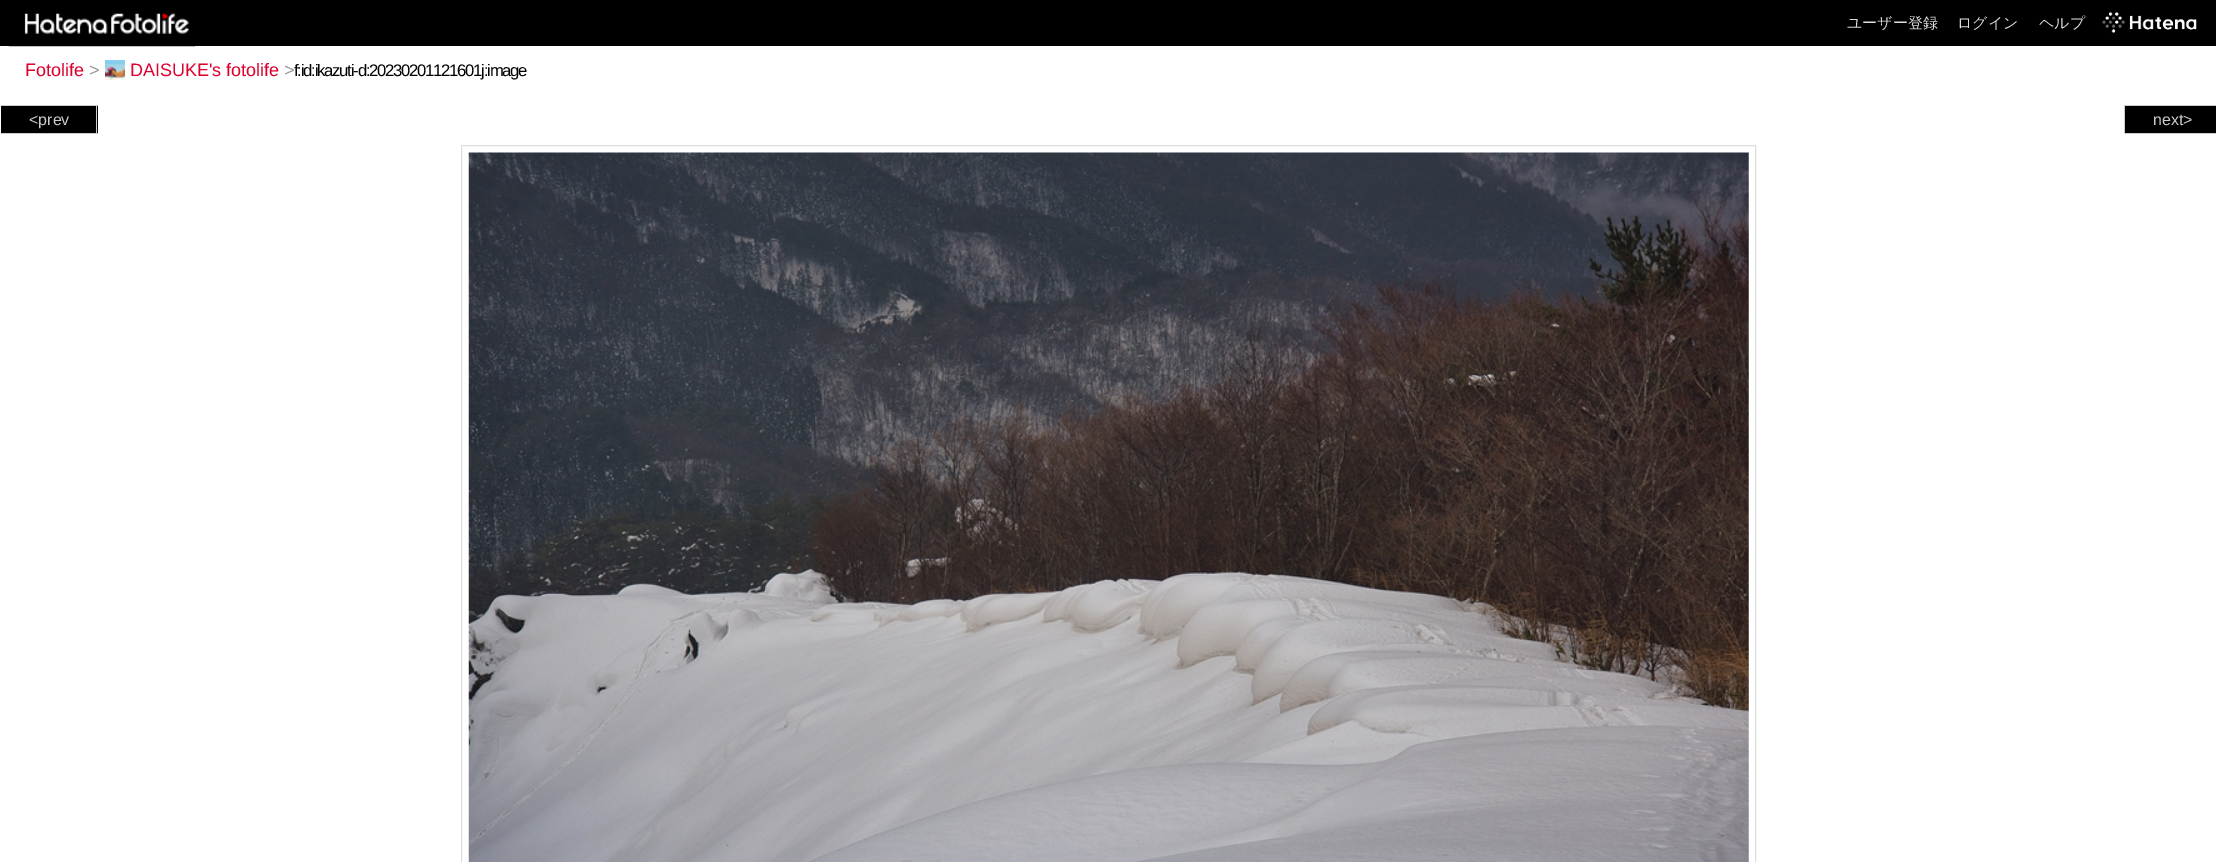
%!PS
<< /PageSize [2216 862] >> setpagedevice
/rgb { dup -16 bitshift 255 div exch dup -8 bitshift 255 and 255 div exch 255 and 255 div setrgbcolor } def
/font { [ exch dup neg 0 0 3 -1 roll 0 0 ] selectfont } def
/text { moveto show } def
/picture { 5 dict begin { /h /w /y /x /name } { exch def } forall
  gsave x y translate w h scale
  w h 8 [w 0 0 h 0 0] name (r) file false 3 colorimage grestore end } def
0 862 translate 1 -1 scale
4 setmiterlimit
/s1 { /WenQuanYiZenHei-Medium 15 font 16#DDDDDD rgb } def
/s2 { /LiberationSans-Regular 18 font 16#DE002F rgb } def
/s3 { /LiberationSans-Regular 18 font 16#999999 rgb } def
/s4 { /LiberationSans-Regular 16 font 16#CCCCCC rgb } def
16#FFFFFF rgb
0 0 2216 862 rectfill
16#000000 rgb
0 0 2216 46 rectfill
(pic1.raw) 8 13 104 34 picture
(pic2.raw) 111 13 84 34 picture
s1
(ユーザー登録) 1847 28 text
(ログイン) 1957 28 text
(ヘルプ) 2039 28 text
(pic3.raw) 2102 12 95 21 picture
s2
(Fotolife) 25 76 text
s3
(>) 89 76 text
(pic4.raw) 105 60 20 20 picture
s2
(DAISUKE's fotolife) 130 76 text
s3
(>) 284 76 text
/LiberationSans-Regular 16.7 font
16#000000 rgb
294 76 moveto -1.25 0 (f:id:ikazuti-d:20230201121601j:image) ashow
1 106 97 27 rectfill
16#CCCCCC rgb
1 105 97 1 rectfill
96 105 1 29 rectfill
1 133 97 1 rectfill
s4
(<prev) 29 125 text
16#000000 rgb
2125 106 91 27 rectfill
16#CCCCCC rgb
2124 105 92 1 rectfill
2124 133 92 1 rectfill
2124 105 1 29 rectfill
(next>) 2153 125 text
16#DEDEDE rgb
461.5 145.5 1294 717 rectstroke
(pic5.raw) 468 152 1281 710 picture
showpage
